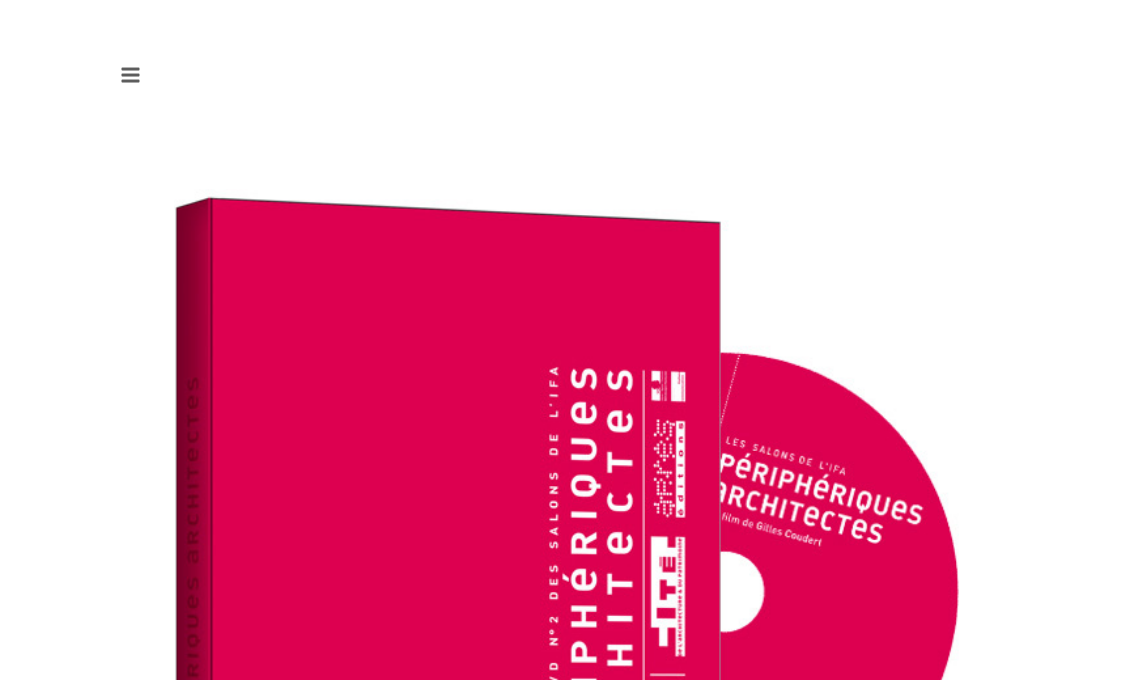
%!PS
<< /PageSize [1141 680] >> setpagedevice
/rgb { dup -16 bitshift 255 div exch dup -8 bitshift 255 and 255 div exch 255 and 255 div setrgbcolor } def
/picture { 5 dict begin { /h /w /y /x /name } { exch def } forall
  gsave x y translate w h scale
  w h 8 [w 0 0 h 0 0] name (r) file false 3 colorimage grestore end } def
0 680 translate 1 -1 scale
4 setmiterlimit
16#FFFFFF rgb
0 0 1141 680 rectfill
(pic1.raw) 121 67 19 16 picture
(pic2.raw) 174 189 785 491 picture
showpage
